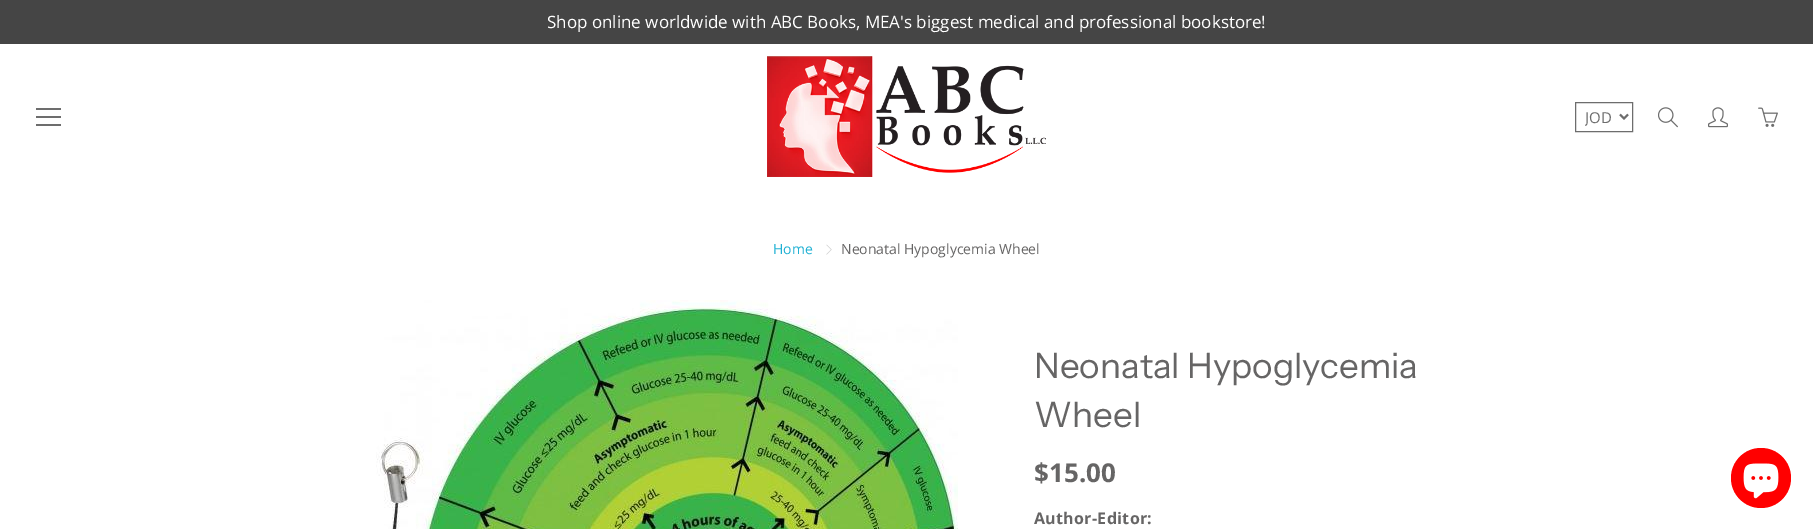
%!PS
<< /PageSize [1813 529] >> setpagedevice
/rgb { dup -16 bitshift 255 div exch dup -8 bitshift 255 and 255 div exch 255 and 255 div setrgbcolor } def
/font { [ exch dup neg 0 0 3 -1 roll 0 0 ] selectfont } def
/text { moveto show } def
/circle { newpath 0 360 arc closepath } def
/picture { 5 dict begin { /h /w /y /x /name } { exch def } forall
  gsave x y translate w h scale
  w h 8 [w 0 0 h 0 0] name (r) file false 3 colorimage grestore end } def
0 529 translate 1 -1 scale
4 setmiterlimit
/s1 { /OpenSans-Regular 17 font 16#FFFFFF rgb } def
/s2 { /OpenSans-Regular 15 font 16#6D6D6D rgb } def
/s3 { /OpenSans-Regular 14 font 16#1FB1D4 rgb } def
/s4 { /OpenSans-Regular 14 font 16#666565 rgb } def
/s5 { /InstrumentSans-Regular 35 font 16#666565 rgb } def
/s6 { /OpenSans-Bold 26 font 16#666565 rgb } def
16#FFFFFF rgb
0 0 1813 529 rectfill
16#454545 rgb
0 0 1813 44 rectfill
s1
(Shop online worldwide with ABC Books, MEA's biggest medical and professional bookstore!) 547 28 text
(pic1.raw) 767 56 279 121 picture
16#6D6D6D rgb
36 116 25 2 rectfill
36 108 25 2 rectfill
36 124 25 2 rectfill
1575.5 102.5 57 29 rectstroke
2 setlinewidth
1620 114.5 moveto 1624 118.5 lineto 1628 114.5 lineto stroke
gsave
1585 106 31 22 rectclip
s2
(JOD) 1585 123 text
grestore
(pic2.raw) 1658 107 20 21 picture
(pic3.raw) 1708 107 20 21 picture
(pic4.raw) 1758 107 20 20 picture
s3
(Home) 773 254 text
(pic5.raw) 826 244 6 11 picture
s4
(Neonatal Hypoglycemia Wheel) 841 254 text
(pic6.raw) 376 300 582 229 picture
s5
(Neonatal Hypoglycemia) 1034 378 text
(Wheel) 1034 427 text
s6
($15.00) 1034 482 text
/OpenSans-Bold 16 font
1034 524 moveto 0.3 0 (Author-Editor:) ashow
16#FF0000 rgb
1761 478 30 circle fill
(pic7.raw) 1743 463 36 36 picture
showpage
